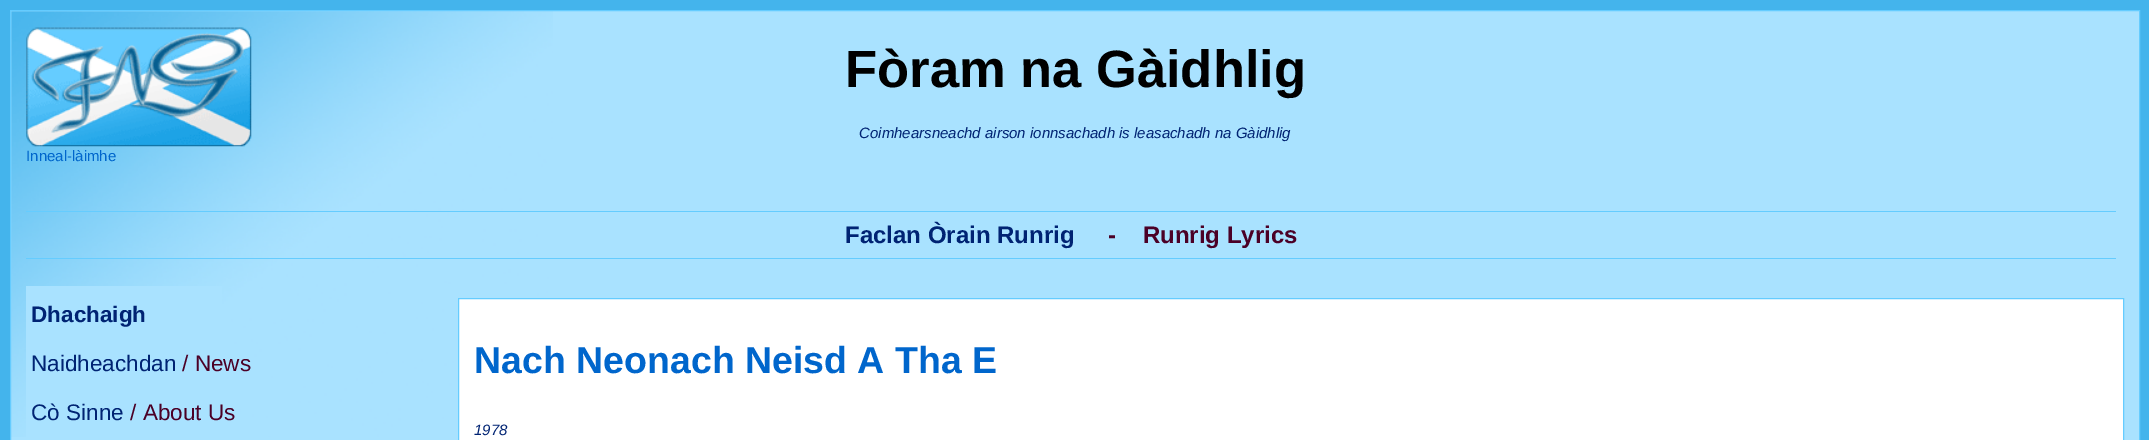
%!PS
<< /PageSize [2149 440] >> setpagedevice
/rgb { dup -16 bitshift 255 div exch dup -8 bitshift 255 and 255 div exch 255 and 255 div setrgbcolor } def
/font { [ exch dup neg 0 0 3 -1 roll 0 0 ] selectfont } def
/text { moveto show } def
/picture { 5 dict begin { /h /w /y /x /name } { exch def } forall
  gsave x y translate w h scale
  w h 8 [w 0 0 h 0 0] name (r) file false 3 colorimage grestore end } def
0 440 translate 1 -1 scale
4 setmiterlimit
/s1 { /LiberationSans-Bold 52.5 font 16#000000 rgb } def
/s2 { /LiberationSans-Italic 15 font 16#002373 rgb } def
/s3 { /LiberationSans-Regular 15 font 16#0066CC rgb } def
/s4 { /LiberationSans-Bold 24 font 16#002373 rgb } def
/s5 { /LiberationSans-Bold 24 font 16#4B0026 rgb } def
/s6 { /LiberationSans-Bold 22.5 font 16#002373 rgb } def
/s7 { /LiberationSans-Regular 22.5 font 16#002373 rgb } def
/s8 { /LiberationSans-Regular 22.5 font 16#4B0026 rgb } def
/s9 { /LiberationSans-Bold 37.5 font 16#0066CC rgb } def
16#44B4EC rgb
0 0 2149 440 rectfill
16#A9E2FF rgb
11 11 2128 429 rectfill
(pic1.raw) 11 11 542 426 picture
16#65CCFF rgb
10.5 10.5 2129 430 rectstroke
s1
(Fòram na Gàidhlig) 845 87 text
s2
(Coimhearsneachd airson ionnsachadh is leasachadh na Gàidhlig) 859 138 text
(pic2.raw) 26 27 226 120 picture
s3
(Inneal-làimhe) 26 161 text
16#65CCFF rgb
26 211 2090 1 rectfill
26 258 2090 1 rectfill
s4
(Faclan Òrain Runrig) 845 243 text
s5
(-    Runrig Lyrics) 1108 243 text
16#A9E2FF rgb
26 286 196 151 rectfill
s6
(Dhachaigh) 31 322 text
s7
(Naidheachdan) 31 371 text
s8
(/ News) 182 371 text
s7
(Cò Sinne) 31 420 text
s8
(/ About Us) 130 420 text
16#FFFFFF rgb
458.5 298.5 moveto 2123.5 298.5 lineto 2123.5 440.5 lineto 458.5 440.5 lineto closepath gsave fill grestore
16#65CCFF rgb
stroke
s9
(Nach Neonach Neisd A Tha E) 474 373 text
s2
(1978) 474 435 text
showpage
